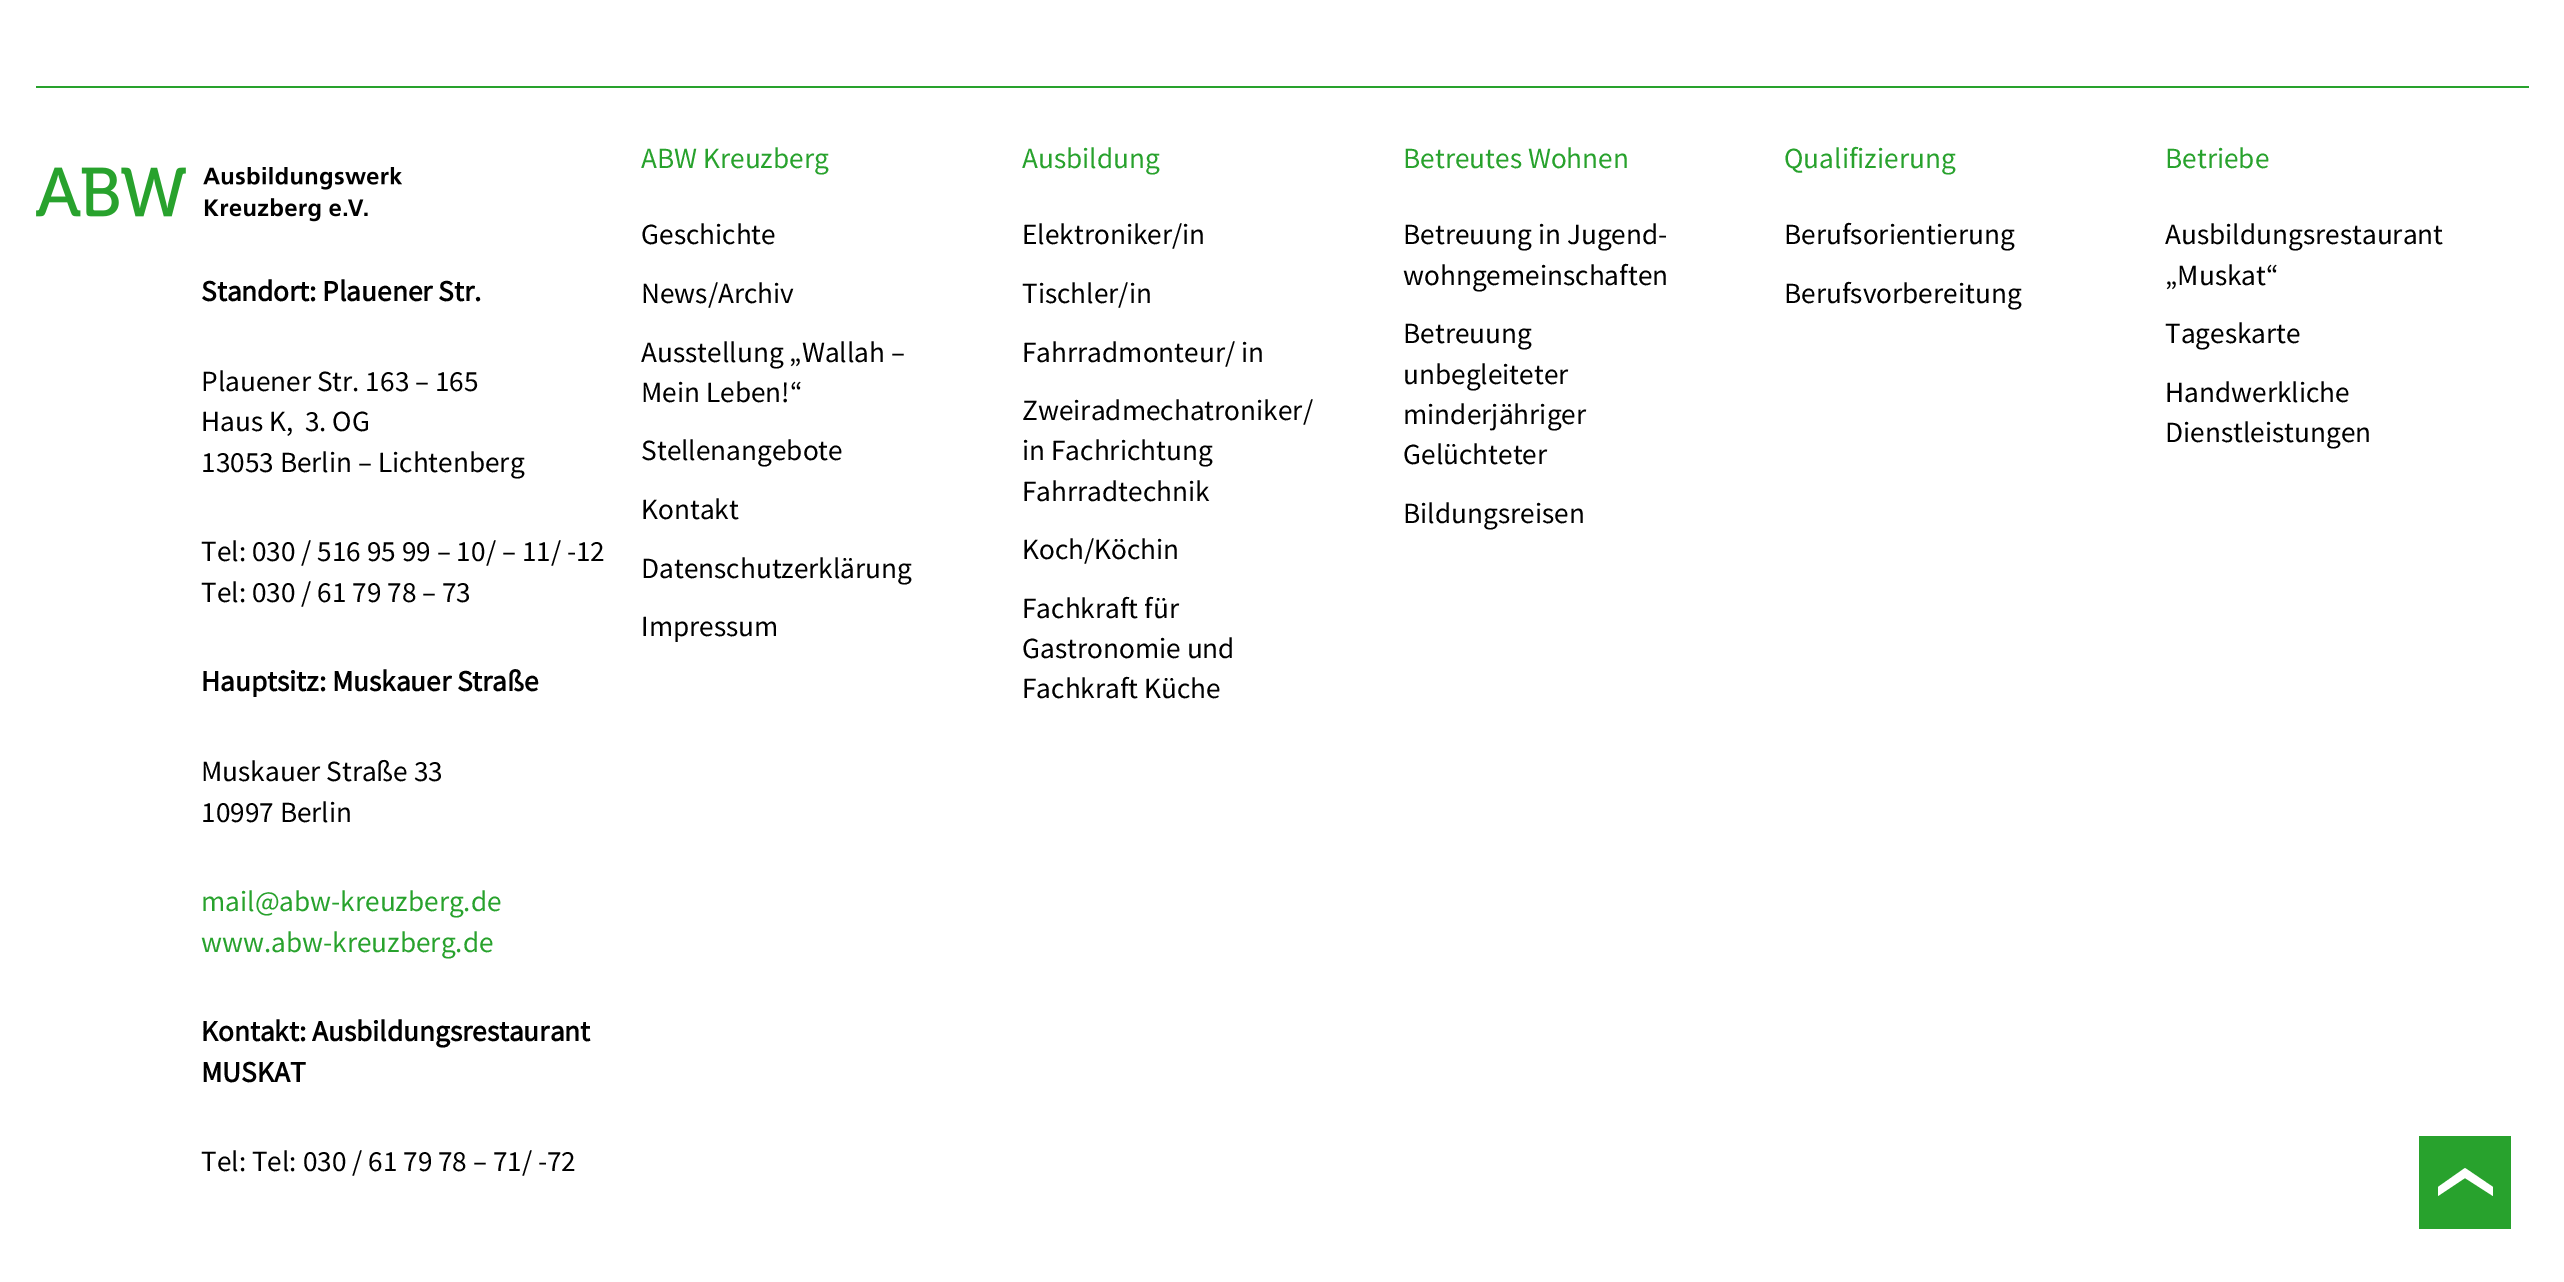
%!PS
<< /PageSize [2564 1282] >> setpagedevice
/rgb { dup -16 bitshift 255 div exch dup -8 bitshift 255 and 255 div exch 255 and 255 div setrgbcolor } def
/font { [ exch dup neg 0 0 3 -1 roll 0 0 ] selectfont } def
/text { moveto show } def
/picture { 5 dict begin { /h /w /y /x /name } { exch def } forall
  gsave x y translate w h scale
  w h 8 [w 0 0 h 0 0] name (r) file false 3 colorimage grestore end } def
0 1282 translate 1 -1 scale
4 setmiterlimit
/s1 { /SourceSansPro-Bold 29.25 font 16#000000 rgb } def
/s2 { /SourceSansPro-Regular 29.25 font 16#000000 rgb } def
/s3 { /SourceSansPro-Regular 29.25 font 16#28A22D rgb } def
16#FFFFFF rgb
0 0 2564 1282 rectfill
16#28A22D rgb
36 86 2493 2 rectfill
(pic1.raw) 36 167 366 55 picture
s1
(Standort: Plauener Str.) 201 301 text
s2
(Plauener Str. 163 – 165) 201 391 text
(Haus K,  3. OG) 201 431 text
(13053 Berlin – Lichtenberg) 201 472 text
(Tel: 030 / 516 95 99 – 10/ – 11/ -12) 201 561 text
(Tel: 030 / 61 79 78 – 73) 201 602 text
s1
(Hauptsitz: Muskauer Straße) 201 691 text
s2
(Muskauer Straße 33) 201 781 text
(10997 Berlin) 201 822 text
s3
(mail@abw-kreuzberg.de) 201 911 text
(www.abw-kreuzberg.de) 201 952 text
s1
(Kontakt: Ausbildungsrestaurant) 201 1041 text
(MUSKAT) 201 1082 text
s2
(Tel: Tel: 030 / 61 79 78 – 71/ -72) 201 1171 text
s3
(ABW Kreuzberg) 641 168 text
s2
(Geschichte) 641 244 text
(News/Archiv) 641 303 text
(Ausstellung „Wallah –) 641 362 text
(Mein Leben!“) 641 402 text
(Stellenangebote) 641 460 text
(Kontakt) 641 519 text
(Datenschutzerklärung) 641 578 text
(Impressum) 641 636 text
s3
(Ausbildung) 1022 168 text
s2
(Elektroniker/in) 1022 244 text
(Tischler/in) 1022 303 text
(Fahrradmonteur/ in) 1022 362 text
(Zweiradmechatroniker/) 1022 420 text
(in Fachrichtung) 1022 460 text
(Fahrradtechnik) 1022 501 text
(Koch/Köchin) 1022 559 text
(Fachkraft für) 1022 618 text
(Gastronomie und) 1022 658 text
(Fachkraft Küche) 1022 698 text
s3
(Betreutes Wohnen) 1403 168 text
s2
(Betreuung in Jugend-) 1403 244 text
(wohngemeinschaften) 1403 285 text
(Betreuung) 1403 343 text
(unbegleiteter) 1403 384 text
(minderjähriger) 1403 424 text
(Gelüchteter) 1403 464 text
(Bildungsreisen) 1403 523 text
s3
(Qualifizierung) 1784 168 text
s2
(Berufsorientierung) 1784 244 text
(Berufsvorbereitung) 1784 303 text
s3
(Betriebe) 2165 168 text
s2
(Ausbildungsrestaurant) 2165 244 text
(„Muskat“) 2165 285 text
(Tageskarte) 2165 343 text
(Handwerkliche) 2165 402 text
(Dienstleistungen) 2165 442 text
16#28A22D rgb
2419 1136 92 93 rectfill
16#FFFFFF rgb
2438 1196 moveto 2438 1187 lineto 2465 1168 lineto 2493 1187 lineto 2493 1196 lineto 2465 1178 lineto closepath fill
showpage
